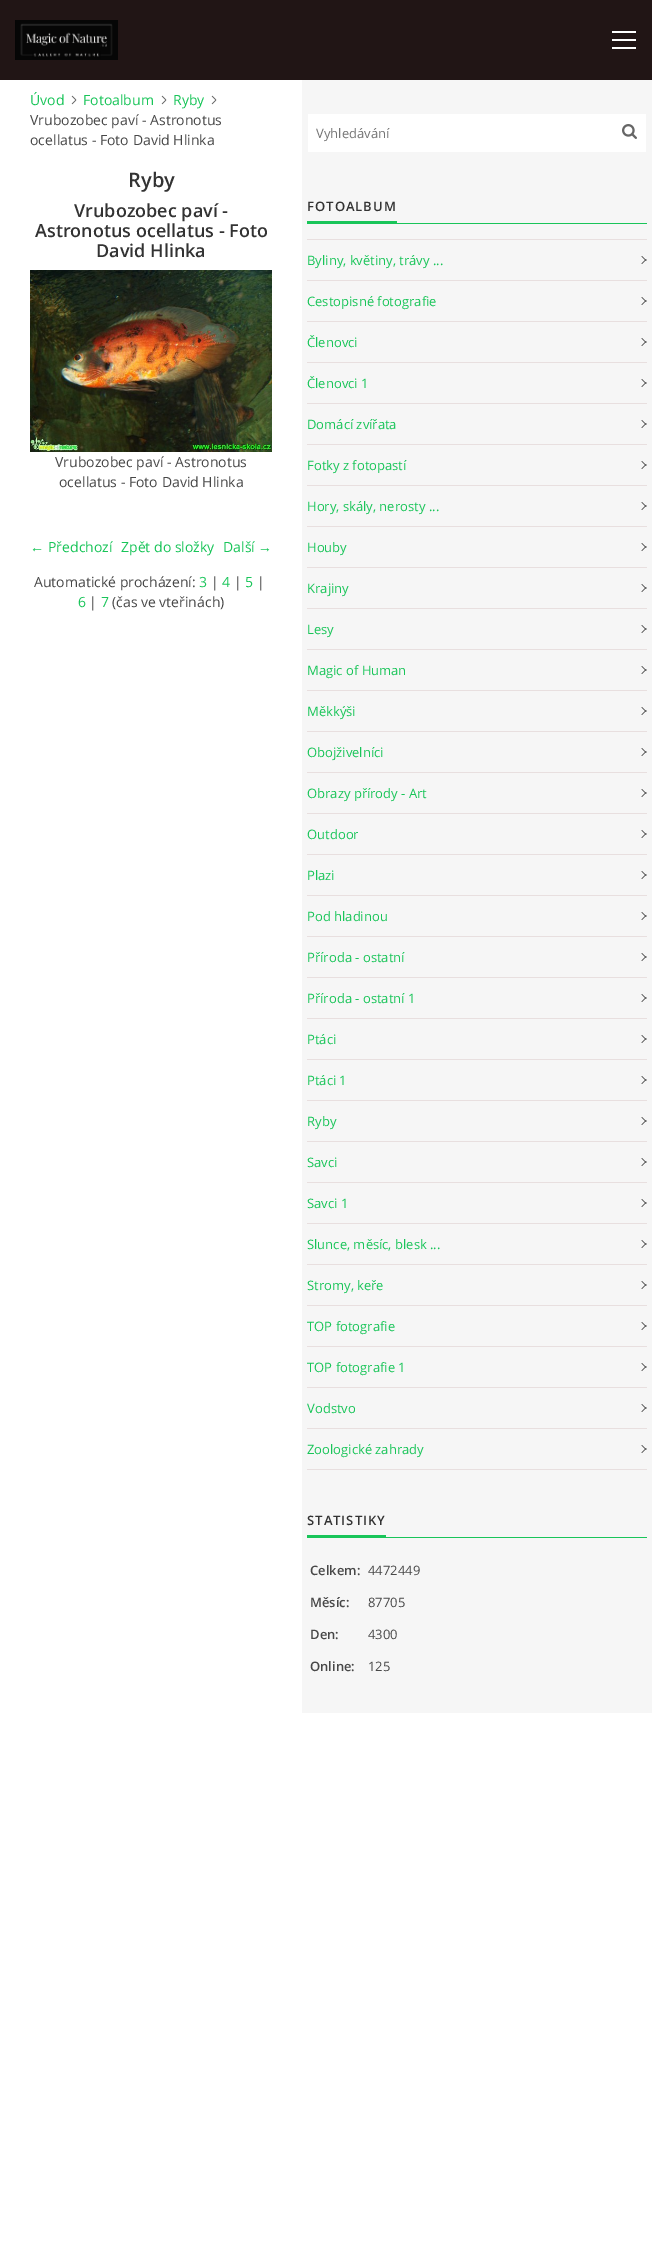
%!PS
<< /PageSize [652 2242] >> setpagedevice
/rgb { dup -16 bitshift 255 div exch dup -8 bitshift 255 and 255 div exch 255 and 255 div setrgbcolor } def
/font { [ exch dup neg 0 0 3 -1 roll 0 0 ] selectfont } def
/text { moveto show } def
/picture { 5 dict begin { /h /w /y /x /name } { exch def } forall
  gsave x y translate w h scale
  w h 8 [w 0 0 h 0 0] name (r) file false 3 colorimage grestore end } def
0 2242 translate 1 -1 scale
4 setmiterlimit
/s1 { /OpenSans-Regular 14 font 16#19C559 rgb } def
/s2 { /OpenSans-Regular 14 font 16#484848 rgb } def
/s3 { /OpenSans-SemiBold 20 font 16#333333 rgb } def
/s4 { /OpenSans-SemiBold 18 font 16#333333 rgb } def
/s5 { /LiberationSerif-Regular 14 font 16#19C559 rgb } def
/s6 { /OpenSans-Regular 13 font 16#757575 rgb } def
/s7 { /OpenSans-Regular 13 font 16#19C559 rgb } def
/s8 { /OpenSans-SemiBold 13 font 16#484848 rgb } def
/s9 { /OpenSans-Regular 13 font 16#484848 rgb } def
16#FFFFFF rgb
0 0 652 2242 rectfill
16#211515 rgb
0 0 652 80 rectfill
(pic1.raw) 15 20 103 40 picture
(pic2.raw) 612 31 24 18 picture
(pic3.raw) 71 95 6 10 picture
s1
(Úvod) 30 105 text
(pic3.raw) 161 95 6 10 picture
(Fotoalbum) 83 105 text
(pic3.raw) 211 95 6 10 picture
(Ryby) 173 105 text
s2
(Vrubozobec paví - Astronotus) 30 125 text
(ocellatus - Foto David Hlinka) 30 145 text
s3
(Ryby) 128 187 text
s4
(Vrubozobec paví -) 74 217 text
(Astronotus ocellatus - Foto) 35 237 text
(David Hlinka) 96 257 text
(pic4.raw) 30 270 242 182 picture
s2
(Vrubozobec paví - Astronotus) 55 467 text
(ocellatus - Foto David Hlinka) 59 487 text
s5
(←) 30 552 text
s1
(Předchozí) 48 552 text
(Zpět do složky) 121 552 text
(Další) 223 552 text
s5
(→) 258 552 text
s2
(Automatické procházení:) 34 587 text
s1
(3) 199 587 text
s2
(|) 211 587 text
s1
(4) 222 587 text
s2
(|) 234 587 text
s1
(5) 245 587 text
s2
(|) 257 587 text
s1
(6) 78 607 text
s2
(|) 89 607 text
s1
(7) 101 607 text
s2
(\(čas ve vteřinách\)) 112 607 text
16#F6F6F6 rgb
302 80 350 1633 rectfill
16#FFFFFF rgb
308 114 338 38 rectfill
s6
(Vyhledávání) 316 138 text
(pic5.raw) 622 124 15 15 picture
/OpenSans-SemiBold 13 font
16#333333 rgb
307 211 moveto 1 0 (FOTOALBUM) ashow
16#19C559 rgb
307 221 90 2 rectfill
307 223 340 1 rectfill
16#E8DFDF rgb
307 239 340 1 rectfill
307 280 340 1 rectfill
s7
(Byliny, květiny, trávy ...) 307 265 text
16#484848 rgb
642 256 moveto 646.5 260.5 lineto 646 261 lineto 641.5 256.5 lineto closepath fill
641.5 263.5 moveto 646 259 lineto 646.5 259.5 lineto 642 264 lineto closepath fill
16#E8DFDF rgb
307 321 340 1 rectfill
s7
(Cestopisné fotografie) 307 306 text
16#484848 rgb
642 297 moveto 646.5 301.5 lineto 646 302 lineto 641.5 297.5 lineto closepath fill
641.5 304.5 moveto 646 300 lineto 646.5 300.5 lineto 642 305 lineto closepath fill
16#E8DFDF rgb
307 362 340 1 rectfill
s7
(Členovci) 307 347 text
16#484848 rgb
642 338 moveto 646.5 342.5 lineto 646 343 lineto 641.5 338.5 lineto closepath fill
641.5 345.5 moveto 646 341 lineto 646.5 341.5 lineto 642 346 lineto closepath fill
16#E8DFDF rgb
307 403 340 1 rectfill
s7
(Členovci 1) 307 388 text
16#484848 rgb
642 379 moveto 646.5 383.5 lineto 646 384 lineto 641.5 379.5 lineto closepath fill
641.5 386.5 moveto 646 382 lineto 646.5 382.5 lineto 642 387 lineto closepath fill
16#E8DFDF rgb
307 444 340 1 rectfill
s7
(Domácí zvířata) 307 429 text
16#484848 rgb
642 420 moveto 646.5 424.5 lineto 646 425 lineto 641.5 420.5 lineto closepath fill
641.5 427.5 moveto 646 423 lineto 646.5 423.5 lineto 642 428 lineto closepath fill
16#E8DFDF rgb
307 485 340 1 rectfill
s7
(Fotky z fotopastí) 307 470 text
16#484848 rgb
642 461 moveto 646.5 465.5 lineto 646 466 lineto 641.5 461.5 lineto closepath fill
641.5 468.5 moveto 646 464 lineto 646.5 464.5 lineto 642 469 lineto closepath fill
16#E8DFDF rgb
307 526 340 1 rectfill
s7
(Hory, skály, nerosty ...) 307 511 text
16#484848 rgb
642 502 moveto 646.5 506.5 lineto 646 507 lineto 641.5 502.5 lineto closepath fill
641.5 509.5 moveto 646 505 lineto 646.5 505.5 lineto 642 510 lineto closepath fill
16#E8DFDF rgb
307 567 340 1 rectfill
s7
(Houby) 307 552 text
16#484848 rgb
642 543 moveto 646.5 547.5 lineto 646 548 lineto 641.5 543.5 lineto closepath fill
641.5 550.5 moveto 646 546 lineto 646.5 546.5 lineto 642 551 lineto closepath fill
16#E8DFDF rgb
307 608 340 1 rectfill
s7
(Krajiny) 307 593 text
16#484848 rgb
642 584 moveto 646.5 588.5 lineto 646 589 lineto 641.5 584.5 lineto closepath fill
641.5 591.5 moveto 646 587 lineto 646.5 587.5 lineto 642 592 lineto closepath fill
16#E8DFDF rgb
307 649 340 1 rectfill
s7
(Lesy) 307 634 text
16#484848 rgb
642 625 moveto 646.5 629.5 lineto 646 630 lineto 641.5 625.5 lineto closepath fill
641.5 632.5 moveto 646 628 lineto 646.5 628.5 lineto 642 633 lineto closepath fill
16#E8DFDF rgb
307 690 340 1 rectfill
s7
(Magic of Human) 307 675 text
16#484848 rgb
642 666 moveto 646.5 670.5 lineto 646 671 lineto 641.5 666.5 lineto closepath fill
641.5 673.5 moveto 646 669 lineto 646.5 669.5 lineto 642 674 lineto closepath fill
16#E8DFDF rgb
307 731 340 1 rectfill
s7
(Měkkýši) 307 716 text
16#484848 rgb
642 707 moveto 646.5 711.5 lineto 646 712 lineto 641.5 707.5 lineto closepath fill
641.5 714.5 moveto 646 710 lineto 646.5 710.5 lineto 642 715 lineto closepath fill
16#E8DFDF rgb
307 772 340 1 rectfill
s7
(Obojživelníci) 307 757 text
16#484848 rgb
642 748 moveto 646.5 752.5 lineto 646 753 lineto 641.5 748.5 lineto closepath fill
641.5 755.5 moveto 646 751 lineto 646.5 751.5 lineto 642 756 lineto closepath fill
16#E8DFDF rgb
307 813 340 1 rectfill
s7
(Obrazy přírody - Art) 307 798 text
16#484848 rgb
642 789 moveto 646.5 793.5 lineto 646 794 lineto 641.5 789.5 lineto closepath fill
641.5 796.5 moveto 646 792 lineto 646.5 792.5 lineto 642 797 lineto closepath fill
16#E8DFDF rgb
307 854 340 1 rectfill
s7
(Outdoor) 307 839 text
16#484848 rgb
642 830 moveto 646.5 834.5 lineto 646 835 lineto 641.5 830.5 lineto closepath fill
641.5 837.5 moveto 646 833 lineto 646.5 833.5 lineto 642 838 lineto closepath fill
16#E8DFDF rgb
307 895 340 1 rectfill
s7
(Plazi) 307 880 text
16#484848 rgb
642 871 moveto 646.5 875.5 lineto 646 876 lineto 641.5 871.5 lineto closepath fill
641.5 878.5 moveto 646 874 lineto 646.5 874.5 lineto 642 879 lineto closepath fill
16#E8DFDF rgb
307 936 340 1 rectfill
s7
(Pod hladinou) 307 921 text
16#484848 rgb
642 912 moveto 646.5 916.5 lineto 646 917 lineto 641.5 912.5 lineto closepath fill
641.5 919.5 moveto 646 915 lineto 646.5 915.5 lineto 642 920 lineto closepath fill
16#E8DFDF rgb
307 977 340 1 rectfill
s7
(Příroda - ostatní) 307 962 text
16#484848 rgb
642 953 moveto 646.5 957.5 lineto 646 958 lineto 641.5 953.5 lineto closepath fill
641.5 960.5 moveto 646 956 lineto 646.5 956.5 lineto 642 961 lineto closepath fill
16#E8DFDF rgb
307 1018 340 1 rectfill
s7
(Příroda - ostatní 1) 307 1003 text
16#484848 rgb
642 994 moveto 646.5 998.5 lineto 646 999 lineto 641.5 994.5 lineto closepath fill
641.5 1001.5 moveto 646 997 lineto 646.5 997.5 lineto 642 1002 lineto closepath fill
16#E8DFDF rgb
307 1059 340 1 rectfill
s7
(Ptáci) 307 1044 text
16#484848 rgb
642 1035 moveto 646.5 1039.5 lineto 646 1040 lineto 641.5 1035.5 lineto closepath fill
641.5 1042.5 moveto 646 1038 lineto 646.5 1038.5 lineto 642 1043 lineto closepath fill
16#E8DFDF rgb
307 1100 340 1 rectfill
s7
(Ptáci 1) 307 1085 text
16#484848 rgb
642 1076 moveto 646.5 1080.5 lineto 646 1081 lineto 641.5 1076.5 lineto closepath fill
641.5 1083.5 moveto 646 1079 lineto 646.5 1079.5 lineto 642 1084 lineto closepath fill
16#E8DFDF rgb
307 1141 340 1 rectfill
s7
(Ryby) 307 1126 text
16#484848 rgb
642 1117 moveto 646.5 1121.5 lineto 646 1122 lineto 641.5 1117.5 lineto closepath fill
641.5 1124.5 moveto 646 1120 lineto 646.5 1120.5 lineto 642 1125 lineto closepath fill
16#E8DFDF rgb
307 1182 340 1 rectfill
s7
(Savci) 307 1167 text
16#484848 rgb
642 1158 moveto 646.5 1162.5 lineto 646 1163 lineto 641.5 1158.5 lineto closepath fill
641.5 1165.5 moveto 646 1161 lineto 646.5 1161.5 lineto 642 1166 lineto closepath fill
16#E8DFDF rgb
307 1223 340 1 rectfill
s7
(Savci 1) 307 1208 text
16#484848 rgb
642 1199 moveto 646.5 1203.5 lineto 646 1204 lineto 641.5 1199.5 lineto closepath fill
641.5 1206.5 moveto 646 1202 lineto 646.5 1202.5 lineto 642 1207 lineto closepath fill
16#E8DFDF rgb
307 1264 340 1 rectfill
s7
(Slunce, měsíc, blesk ...) 307 1249 text
16#484848 rgb
642 1240 moveto 646.5 1244.5 lineto 646 1245 lineto 641.5 1240.5 lineto closepath fill
641.5 1247.5 moveto 646 1243 lineto 646.5 1243.5 lineto 642 1248 lineto closepath fill
16#E8DFDF rgb
307 1305 340 1 rectfill
s7
(Stromy, keře) 307 1290 text
16#484848 rgb
642 1281 moveto 646.5 1285.5 lineto 646 1286 lineto 641.5 1281.5 lineto closepath fill
641.5 1288.5 moveto 646 1284 lineto 646.5 1284.5 lineto 642 1289 lineto closepath fill
16#E8DFDF rgb
307 1346 340 1 rectfill
s7
(TOP fotografie) 307 1331 text
16#484848 rgb
642 1322 moveto 646.5 1326.5 lineto 646 1327 lineto 641.5 1322.5 lineto closepath fill
641.5 1329.5 moveto 646 1325 lineto 646.5 1325.5 lineto 642 1330 lineto closepath fill
16#E8DFDF rgb
307 1387 340 1 rectfill
s7
(TOP fotografie 1) 307 1372 text
16#484848 rgb
642 1363 moveto 646.5 1367.5 lineto 646 1368 lineto 641.5 1363.5 lineto closepath fill
641.5 1370.5 moveto 646 1366 lineto 646.5 1366.5 lineto 642 1371 lineto closepath fill
16#E8DFDF rgb
307 1428 340 1 rectfill
s7
(Vodstvo) 307 1413 text
16#484848 rgb
642 1404 moveto 646.5 1408.5 lineto 646 1409 lineto 641.5 1404.5 lineto closepath fill
641.5 1411.5 moveto 646 1407 lineto 646.5 1407.5 lineto 642 1412 lineto closepath fill
16#E8DFDF rgb
307 1469 340 1 rectfill
s7
(Zoologické zahrady) 307 1454 text
16#484848 rgb
642 1445 moveto 646.5 1449.5 lineto 646 1450 lineto 641.5 1445.5 lineto closepath fill
641.5 1452.5 moveto 646 1448 lineto 646.5 1448.5 lineto 642 1453 lineto closepath fill
/OpenSans-SemiBold 13 font
16#333333 rgb
307 1525 moveto 1 0 (STATISTIKY) ashow
16#19C559 rgb
307 1535 79 2 rectfill
307 1537 340 1 rectfill
s8
(Celkem:) 310 1575 text
s9
(4472449) 368 1575 text
s8
(Měsíc:) 310 1607 text
s9
(87705) 368 1607 text
s8
(Den:) 310 1639 text
s9
(4300) 368 1639 text
s8
(Online:) 310 1671 text
s9
(125) 368 1671 text
showpage
